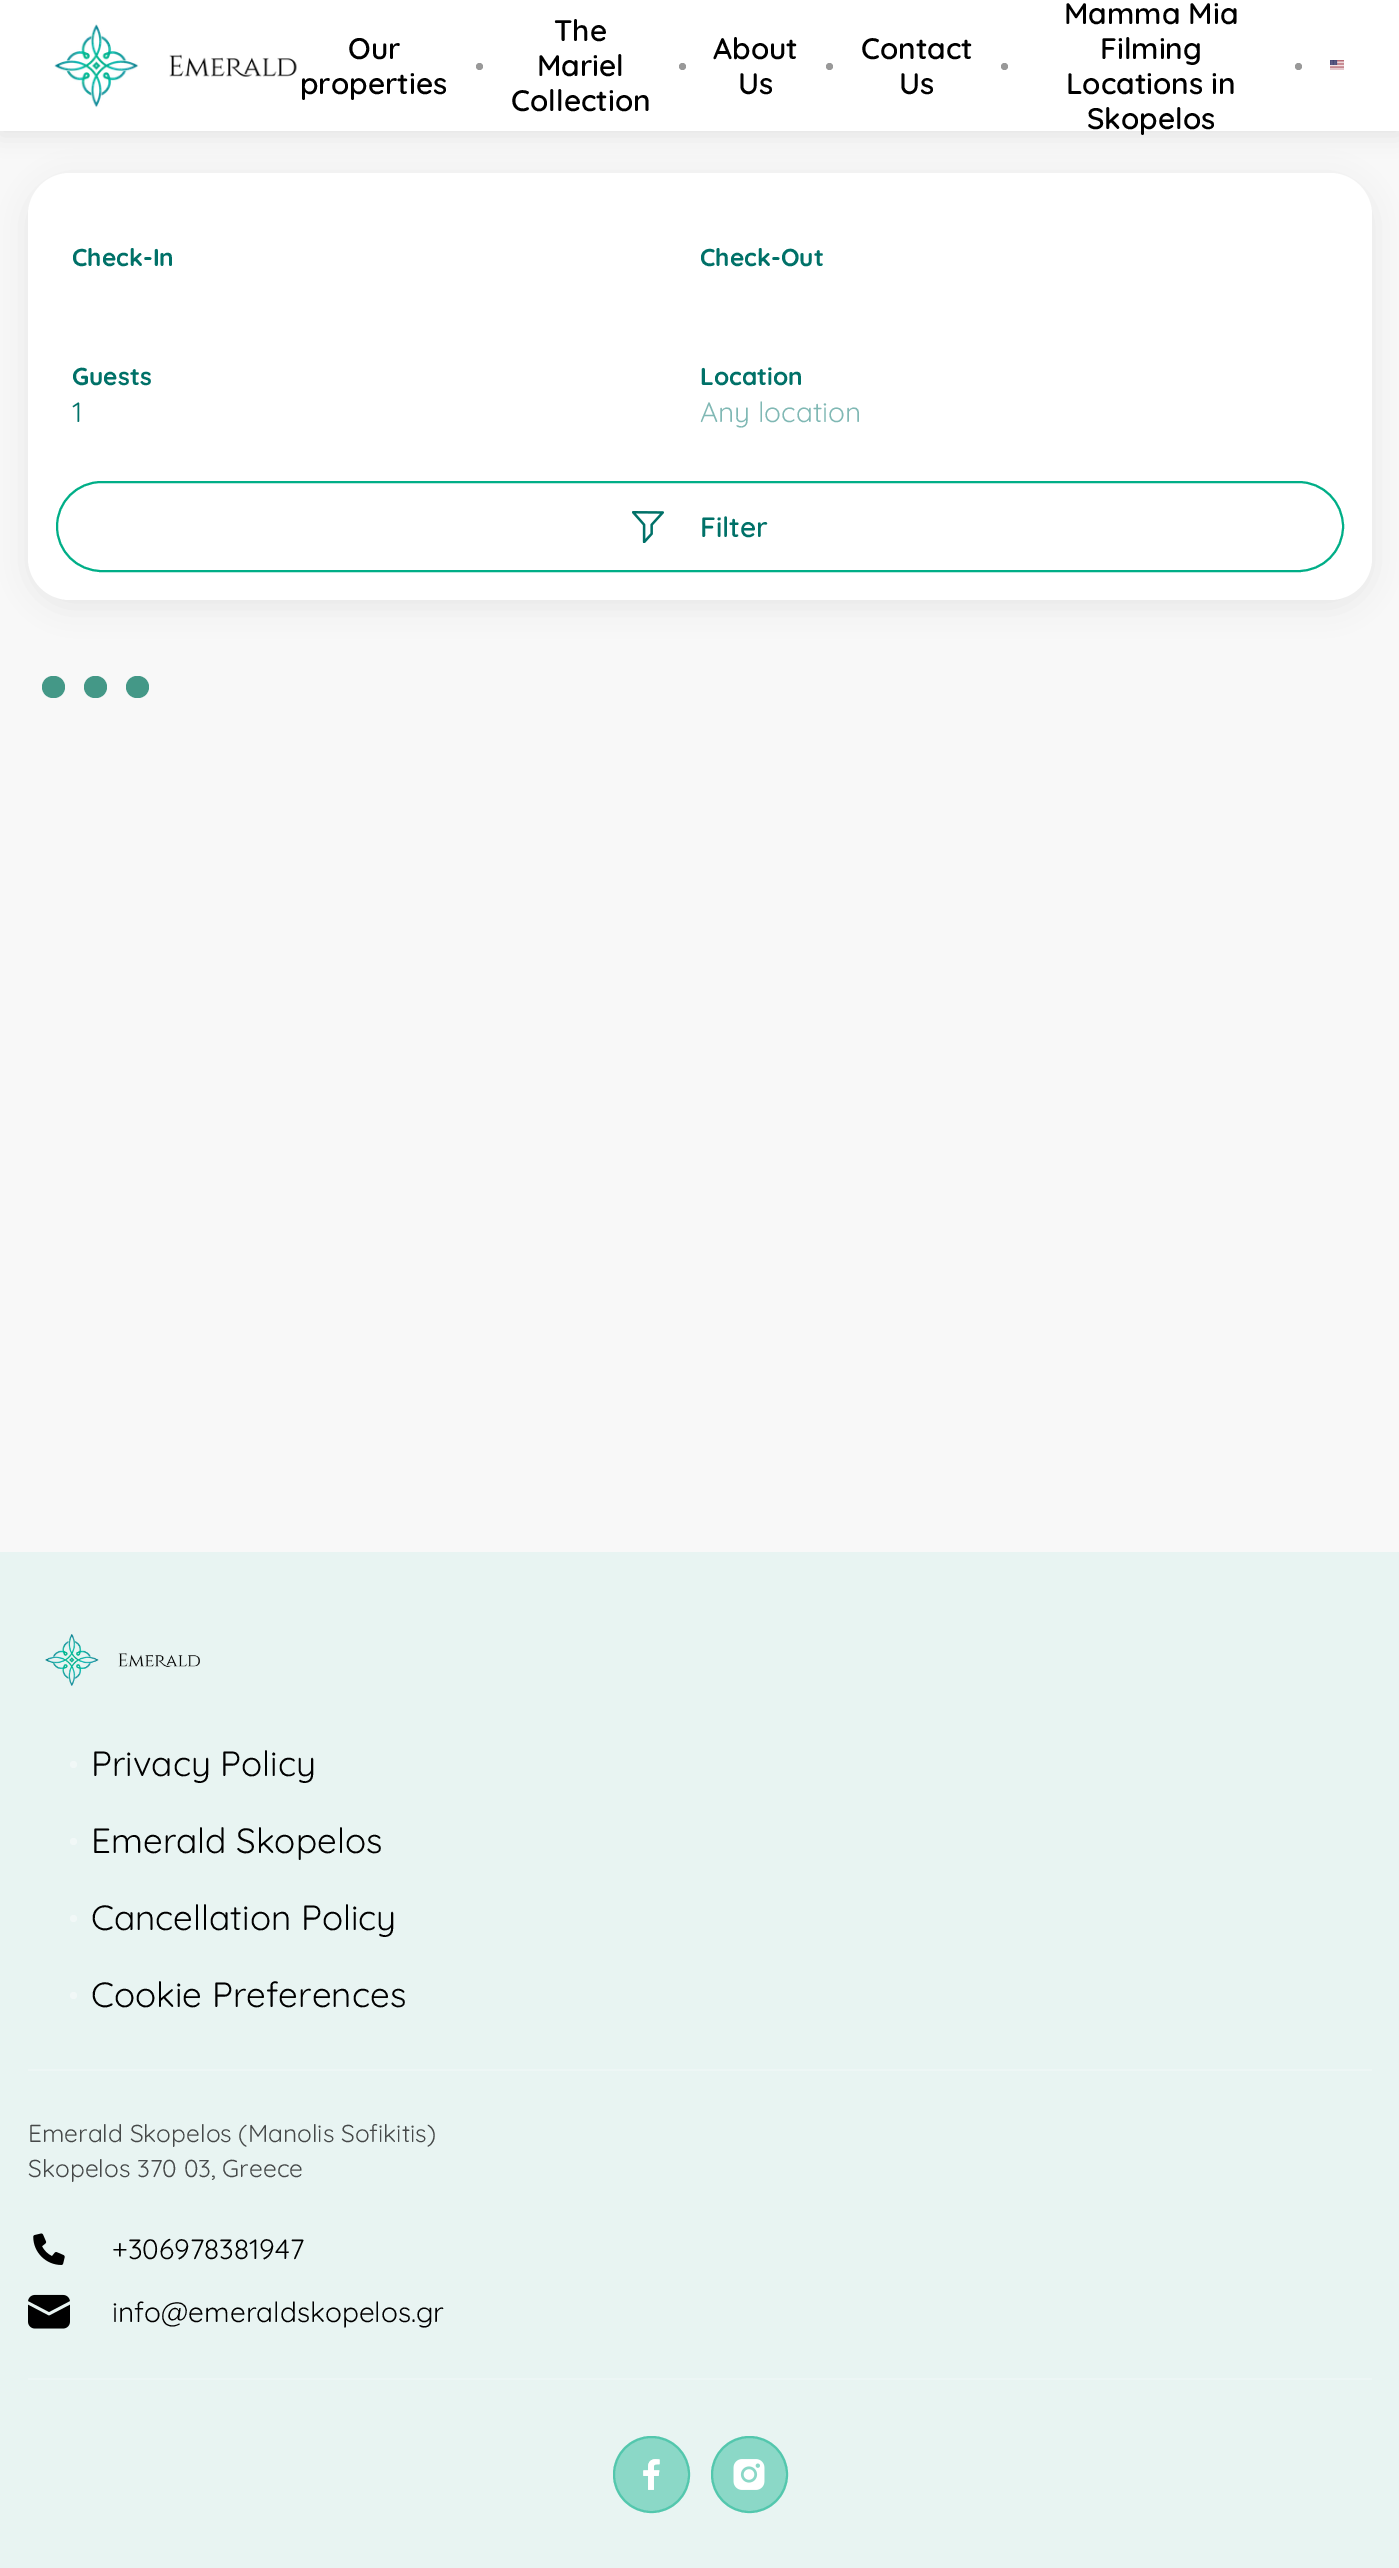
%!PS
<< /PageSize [1399 2568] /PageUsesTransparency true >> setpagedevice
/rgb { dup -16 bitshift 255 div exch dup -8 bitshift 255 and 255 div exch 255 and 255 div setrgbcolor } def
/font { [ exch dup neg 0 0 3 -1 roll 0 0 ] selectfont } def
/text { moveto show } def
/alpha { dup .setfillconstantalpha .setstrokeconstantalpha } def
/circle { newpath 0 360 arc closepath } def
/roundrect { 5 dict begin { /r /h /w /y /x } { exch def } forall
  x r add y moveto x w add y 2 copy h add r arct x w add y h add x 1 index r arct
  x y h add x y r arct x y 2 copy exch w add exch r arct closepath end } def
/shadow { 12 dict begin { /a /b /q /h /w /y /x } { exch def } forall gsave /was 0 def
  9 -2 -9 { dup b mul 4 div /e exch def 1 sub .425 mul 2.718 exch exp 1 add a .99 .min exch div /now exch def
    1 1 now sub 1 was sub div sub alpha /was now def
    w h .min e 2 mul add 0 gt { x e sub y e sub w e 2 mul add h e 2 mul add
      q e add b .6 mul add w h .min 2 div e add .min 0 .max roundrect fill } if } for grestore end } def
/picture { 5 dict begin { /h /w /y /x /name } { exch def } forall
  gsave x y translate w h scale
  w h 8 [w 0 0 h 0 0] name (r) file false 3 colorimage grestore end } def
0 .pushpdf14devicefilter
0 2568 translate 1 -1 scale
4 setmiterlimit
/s1 { /Quicksand-SemiBold 29.75 font 16#000000 rgb } def
/s2 { /Quicksand-Bold 24.5 font 16#007168 rgb } def
/s3 { /Quicksand-Regular 28 font 16#007168 rgb } def
/s4 { /Quicksand-Regular 28 font 16#80B8B4 rgb } def
/s5 { /Quicksand-SemiBold 28 font 16#007168 rgb } def
/s6 { /Quicksand-Regular 35 font 16#000000 rgb } def
/s7 { /Quicksand-Regular 24.5 font 16#464949 rgb } def
/s8 { /Quicksand-Regular 28 font 16#000000 rgb } def
16#F8F8F8 rgb
0 0 1399 2568 rectfill
16#000000 rgb
0 4 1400 131 0 10.5 0.08 shadow
16#FFFFFF rgb
0 0 1399 131 rectfill
(pic1.raw) 54 24 243 84 picture
s1
(Our) 348 59 text
(properties) 300 94 text
16#999999 rgb
479.5 66.5 3.5 circle fill
s1
(The) 554 41 text
(Mariel) 537 76 text
(Collection) 511 111 text
16#999999 rgb
682.5 66.5 3.5 circle fill
s1
(About) 713 59 text
(Us) 738 94 text
16#999999 rgb
829.5 66.5 3.5 circle fill
s1
(Contact) 861 59 text
(Us) 899 94 text
16#999999 rgb
1004.5 66.5 3.5 circle fill
s1
(Mamma Mia) 1064 24 text
(Filming) 1100 59 text
(Locations in) 1066 94 text
(Skopelos) 1087 129 text
16#999999 rgb
1298.5 66.5 3.5 circle fill
(pic2.raw) 1330 60 14 10 picture
16#434343 rgb
28 180 1344 427 42 14 0.1 shadow
16#FFFFFF rgb
28 173 1344 427 42 roundrect fill
s2
(Check-In) 72 266 text
(Check-Out) 700 266 text
(Guests) 72 385 text
s3
(1) 72 422 text
s2
(Location) 700 385 text
s4
(Any location) 700 422 text
16#00AE87 rgb
2 setlinewidth
57 482 1286 89 44.5 roundrect stroke
(pic3.raw) 632 511 32 32 picture
s5
(Filter) 700 537 text
16#449887 rgb
42 676 23 22 11 roundrect fill
84 676 23 22 11 roundrect fill
126 676 23 22 11 roundrect fill
16#E8F4F2 rgb
0 1552 1399 1016 rectfill
(pic4.raw) 45 1634 155 52 picture
16#F1F8F7 rgb
73.5 1764.5 3.5 circle fill
s6
(Privacy Policy) 91 1776 text
16#F1F8F7 rgb
73.5 1841.5 3.5 circle fill
s6
(Emerald Skopelos) 91 1853 text
16#F1F8F7 rgb
73.5 1918.5 3.5 circle fill
s6
(Cancellation Policy) 91 1930 text
16#F1F8F7 rgb
73.5 1995.5 3.5 circle fill
s6
(Cookie Preferences) 91 2007 text
16#EDF6F5 rgb
28 2069 1344 2 rectfill
28 2378 1344 2 rectfill
s7
(Emerald Skopelos \(Manolis Sofikitis\)) 28 2142 text
(Skopelos 370 03, Greece) 28 2177 text
(pic5.raw) 33 2233 32 32 picture
s8
(+306978381947) 112 2259 text
(pic6.raw) 28 2294 42 35 picture
(info@emeraldskopelos.gr) 112 2322 text
16#8BD8C7 rgb
651.5 2474.5 38.5 circle fill
0.4 alpha
16#00AE87 rgb
651.5 2474.5 37.5 circle stroke
1 alpha
(pic7.raw) 643 2459 17 31 picture
16#8BD8C7 rgb
749.5 2474.5 38.5 circle fill
0.4 alpha
16#00AE87 rgb
749.5 2474.5 37.5 circle stroke
1 alpha
(pic8.raw) 733 2459 32 31 picture
.poppdf14devicefilter showpage
